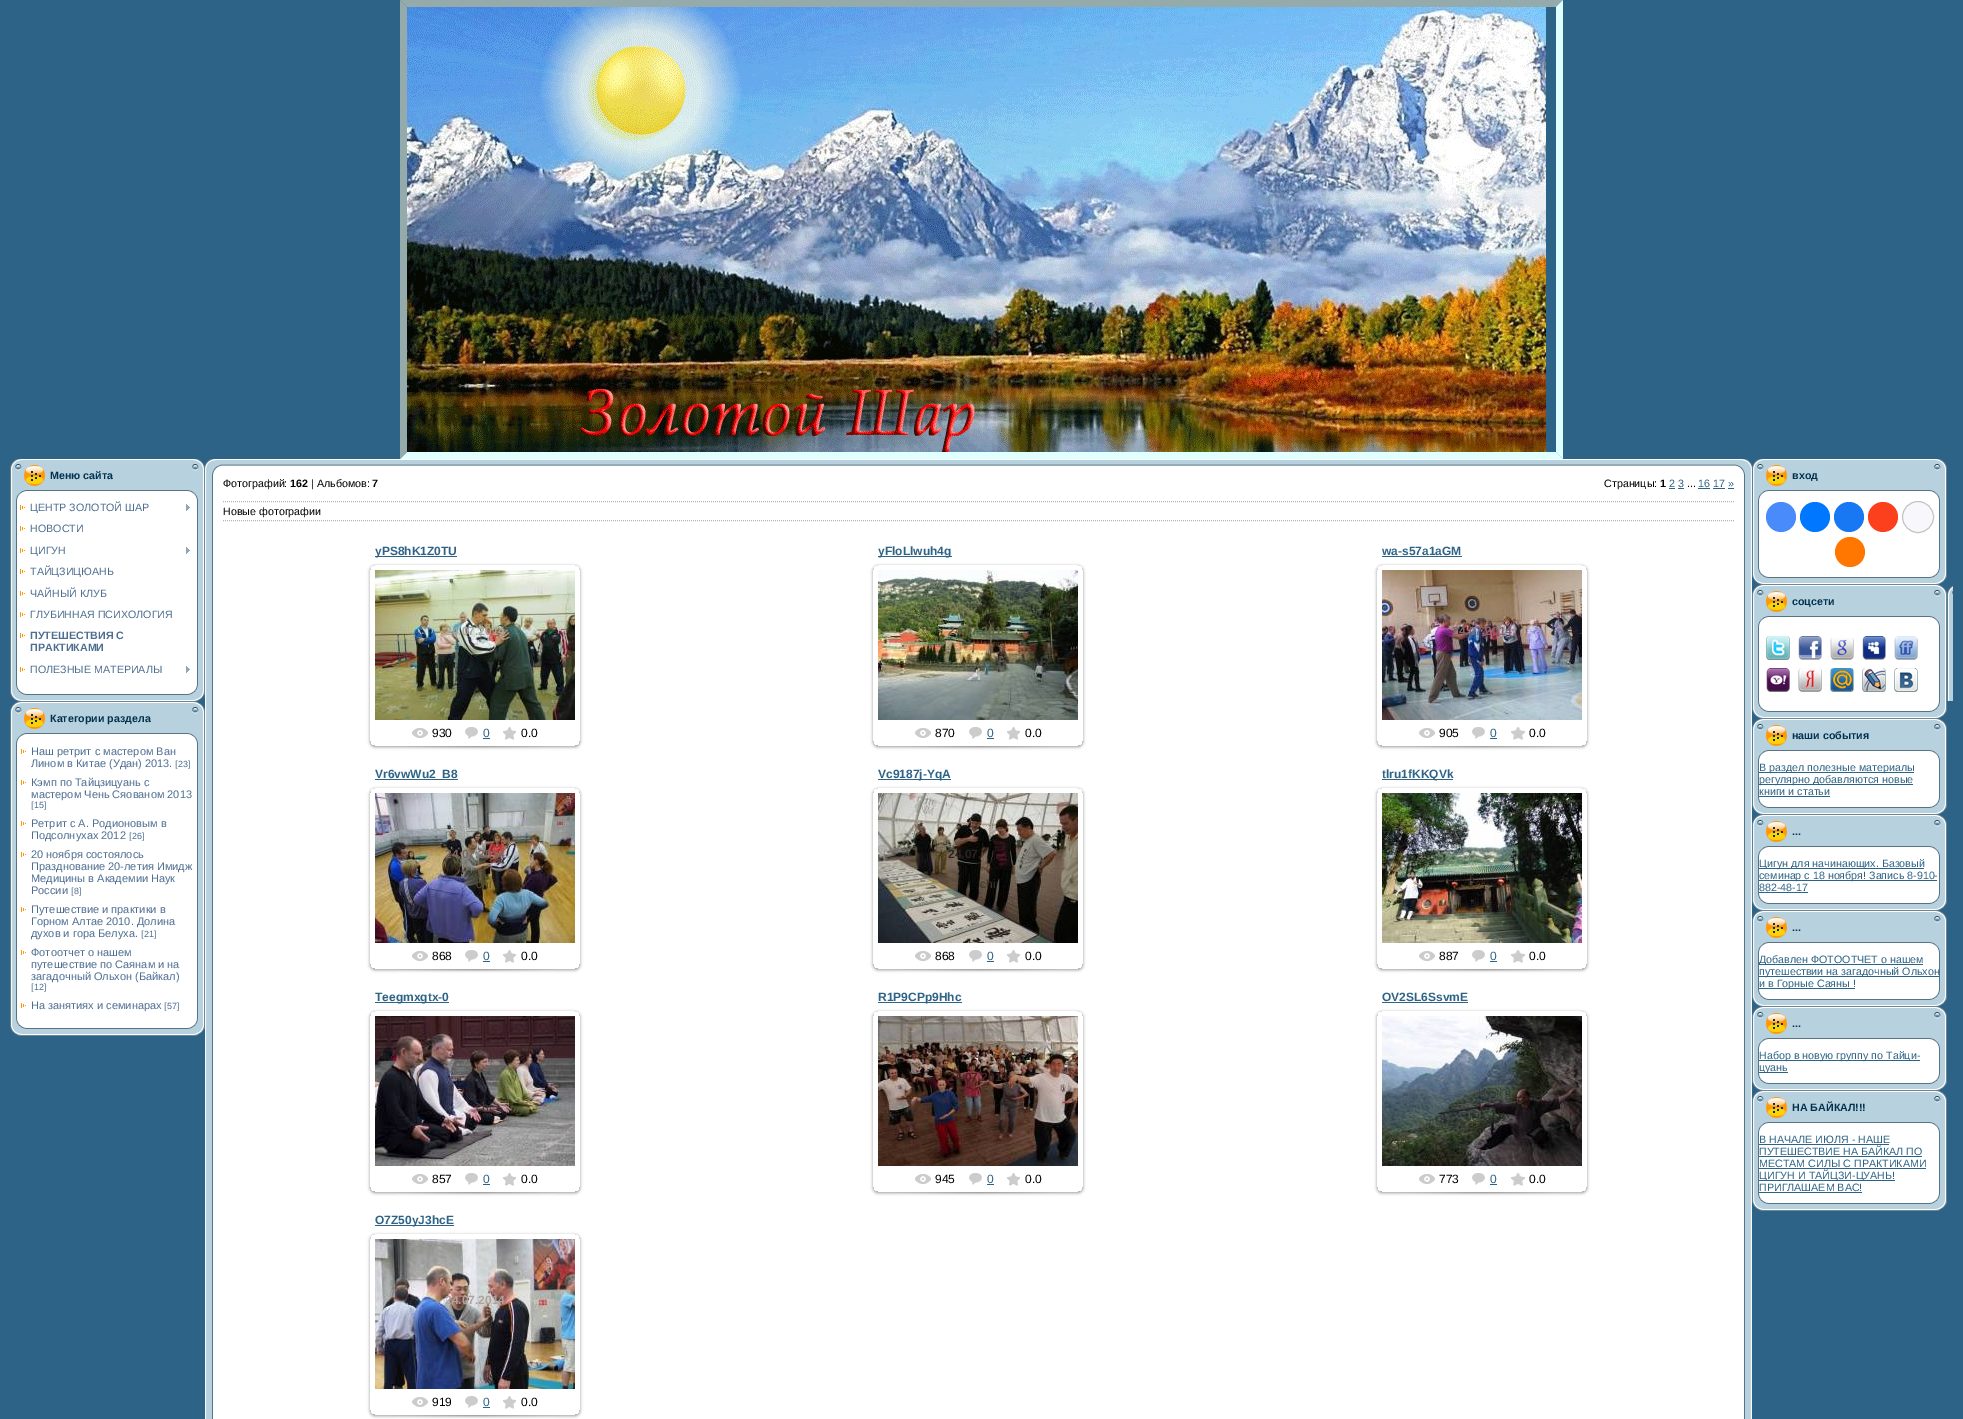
%!PS
<< /PageSize [1963 1419] /PageUsesTransparency true >> setpagedevice
/rgb { dup -16 bitshift 255 div exch dup -8 bitshift 255 and 255 div exch 255 and 255 div setrgbcolor } def
/font { [ exch dup neg 0 0 3 -1 roll 0 0 ] selectfont } def
/text { moveto show } def
/alpha { dup .setfillconstantalpha .setstrokeconstantalpha } def
/circle { newpath 0 360 arc closepath } def
/roundrect { 5 dict begin { /r /h /w /y /x } { exch def } forall
  x r add y moveto x w add y 2 copy h add r arct x w add y h add x 1 index r arct
  x y h add x y r arct x y 2 copy exch w add exch r arct closepath end } def
/shadow { 12 dict begin { /a /b /q /h /w /y /x } { exch def } forall gsave /was 0 def
  9 -2 -9 { dup b mul 4 div /e exch def 1 sub .425 mul 2.718 exch exp 1 add a .99 .min exch div /now exch def
    1 1 now sub 1 was sub div sub alpha /was now def
    w h .min e 2 mul add 0 gt { x e sub y e sub w e 2 mul add h e 2 mul add
      q e add b .6 mul add w h .min 2 div e add .min 0 .max roundrect fill } if } for grestore end } def
/picture { 5 dict begin { /h /w /y /x /name } { exch def } forall
  gsave x y translate w h scale
  w h 8 [w 0 0 h 0 0] name (r) file false 3 colorimage grestore end } def
0 .pushpdf14devicefilter
0 1419 translate 1 -1 scale
4 setmiterlimit
/s1 { /LiberationSans-Bold 10.7 font 16#01324E rgb } def
/s2 { /LiberationSans-Regular 10.7 font 16#4D6D91 rgb } def
/s3 { /LiberationSans-Bold 10.7 font 16#4D6D91 rgb } def
/s4 { /LiberationSans-Regular 11 font 16#4D6D91 rgb } def
/s5 { /LiberationSans-Regular 9 font 16#4D6D91 rgb } def
/s6 { /LiberationSans-Regular 10.7 font 16#000000 rgb } def
/s7 { /LiberationSans-Bold 10.7 font 16#000000 rgb } def
/s8 { /LiberationSans-Regular 10.7 font 16#2D6386 rgb } def
/s9 { /LiberationSans-Bold 12 font 16#2D6386 rgb } def
/s10 { /LiberationSans-Bold 12 font 16#A9A598 rgb } def
/s11 { /LiberationSans-Regular 12 font 16#000000 rgb } def
/s12 { /LiberationSans-Regular 12 font 16#2D6386 rgb } def
/s13 { /LiberationSans-Bold 12 font 16#5E6242 rgb } def
/s14 { /LiberationSans-Bold 12 font 16#7F6571 rgb } def
/s15 { /LiberationSans-Bold 12 font 16#7F665D rgb } def
/s16 { /LiberationSans-Regular 12 font 16#5B4E24 rgb } def
/s17 { /LiberationSans-Bold 12 font 16#2C221F rgb } def
/s18 { /LiberationSans-Regular 12 font 16#3E362D rgb } def
/s19 { /LiberationSans-Bold 12 font 16#535155 rgb } def
/s20 { /LiberationSans-Regular 12 font 16#4C3A3E rgb } def
/s21 { /LiberationSans-Bold 12 font 16#432220 rgb } def
/s22 { /LiberationSans-Bold 12 font 16#B0A19D rgb } def
/s23 { /LiberationSans-Regular 12 font 16#554A44 rgb } def
16#2D6386 rgb
0 0 1963 1419 rectfill
16#95AAAA rgb
400 0 moveto 1563 0 lineto 1556 7 lineto 407 7 lineto closepath fill
16#E0FFFF rgb
1563 0 moveto 1563 459 lineto 1556 452 lineto 1556 7 lineto closepath fill
1563 459 moveto 400 459 lineto 407 452 lineto 1556 452 lineto closepath fill
16#95AAAA rgb
400 459 moveto 400 0 lineto 407 7 lineto 407 452 lineto closepath fill
(pic1.raw) 407 7 1139 445 picture
(pic2.raw) 10 459 195 42 picture
s1
(Меню сайта) 50 479 text
(pic3.raw) 10 501 195 183 picture
(pic4.raw) 20 505 5 5 picture
s2
(ЦЕНТР ЗОЛОТОЙ ШАР) 30 511 text
(pic5.raw) 186 504 4 7 picture
(pic4.raw) 20 526 5 5 picture
(НОВОСТИ) 30 532 text
(pic4.raw) 20 548 5 5 picture
(ЦИГУН) 30 554 text
(pic5.raw) 186 547 4 7 picture
(pic4.raw) 20 569 5 5 picture
(ТАЙЦЗИЦЮАНЬ) 30 575 text
(pic4.raw) 20 591 5 5 picture
(ЧАЙНЫЙ КЛУБ) 30 597 text
(pic4.raw) 20 612 5 5 picture
(ГЛУБИННАЯ ПСИХОЛОГИЯ) 30 618 text
(pic4.raw) 20 633 5 5 picture
s3
(ПУТЕШЕСТВИЯ С) 30 639 text
(ПРАКТИКАМИ) 30 651 text
(pic4.raw) 20 667 5 5 picture
s2
(ПОЛЕЗНЫЕ МАТЕРИАЛЫ) 30 673 text
(pic5.raw) 186 666 4 7 picture
(pic6.raw) 10 684 195 18 picture
(pic2.raw) 10 702 195 42 picture
s1
(Категории раздела) 50 722 text
(pic7.raw) 10 744 195 274 picture
(pic4.raw) 21 749 5 5 picture
s4
(Наш ретрит с мастером Ван) 31 755 text
(Лином в Китае \(Удан\) 2013.) 31 767 text
s5
([23]) 175 767 text
(pic4.raw) 21 780 5 5 picture
s4
(Кэмп по Тайцзицуань с) 31 786 text
(мастером Чень Сяованом 2013) 31 798 text
s5
([15]) 31 808 text
(pic4.raw) 21 821 5 5 picture
s4
(Ретрит с А. Родионовым в) 31 827 text
(Подсолнухах 2012) 31 839 text
s5
([26]) 129 839 text
(pic4.raw) 21 852 5 5 picture
s4
(20 ноября состоялось) 31 858 text
(Празднование 20-летия Имидж) 31 870 text
(Медицины в Академии Наук) 31 882 text
(России) 31 894 text
s5
([8]) 71 894 text
(pic4.raw) 21 907 5 5 picture
s4
(Путешествие и практики в) 31 913 text
(Горном Алтае 2010. Долина) 31 925 text
(духов и гора Белуха.) 31 937 text
s5
([21]) 141 937 text
(pic4.raw) 21 950 5 5 picture
s4
(Фотоотчет о нашем) 31 956 text
(путешествие по Саянам и на) 31 968 text
(загадочный Ольхон \(Байкал\)) 31 980 text
s5
([12]) 31 990 text
(pic4.raw) 21 1003 5 5 picture
s4
(На занятиях и семинарах) 31 1009 text
s5
([57]) 164 1009 text
(pic6.raw) 10 1018 195 18 picture
(pic8.raw) 205 459 18 18 picture
(pic9.raw) 223 459 1511 18 picture
(pic10.raw) 1734 459 18 18 picture
(pic11.raw) 205 477 18 942 picture
16#FFFFFF rgb
223 477 1511 942 rectfill
s6
(Фотографий:) 223 487 text
s7
(162) 290 487 text
s6
(| Альбомов:) 311 487 text
s7
(7) 372 487 text
s6
(Страницы:) 1604 487 text
s7
(1) 1660 487 text
s8
(2 3) 1669 487 text
1669 488 6 1 rectfill
s6
(...) 1687 487 text
16#2D6386 rgb
1678 488 6 1 rectfill
1698 488 12 1 rectfill
(16 17 ») 1698 487 text
1713 488 12 1 rectfill
1728 488 6 1 rectfill
16#A9B8C2 rgb
[1 1] 0 setdash
223 501.5 moveto 1734 501.5 lineto stroke
223 520.5 moveto 1734 520.5 lineto stroke
s6
(Новые фотографии) 223 515 text
16#2D6386 rgb
375 556 82 1 rectfill
s9
(yPS8hK1Z0TU) 375 555 text
gsave
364 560 moveto 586 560 lineto 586 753 lineto 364 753 lineto closepath 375 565 moveto 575 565 lineto 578 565 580 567 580 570 curveto 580 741 lineto 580 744 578 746 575 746 curveto 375 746 lineto 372 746 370 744 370 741 curveto 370 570 lineto 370 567 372 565 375 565 curveto closepath eoclip newpath
16#000000 rgb
370 566 210 181 5 1.5 0.37 shadow
grestore
(pic12.raw) 375 570 200 150 picture
s10
(24.07.2014) 445 635 text
(pic13.raw) 412 728 16 10 picture
s11
(930) 432 737 text
(pic14.raw) 465 727 13 12 picture
s12
(0) 483 737 text
483 738 7 1 rectfill
(pic15.raw) 503 727 13 13 picture
s11
(0.0) 521 737 text
(pic16.raw) 395 746 161 3 picture
16#2D6386 rgb
878 556 74 1 rectfill
s9
(yFloLlwuh4g) 878 555 text
gsave
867 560 moveto 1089 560 lineto 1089 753 lineto 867 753 lineto closepath 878 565 moveto 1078 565 lineto 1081 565 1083 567 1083 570 curveto 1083 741 lineto 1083 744 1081 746 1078 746 curveto 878 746 lineto 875 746 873 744 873 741 curveto 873 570 lineto 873 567 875 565 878 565 curveto closepath eoclip newpath
16#000000 rgb
873 566 210 181 5 1.5 0.37 shadow
grestore
(pic17.raw) 878 570 200 150 picture
s13
(24.07.2014) 948 635 text
(pic13.raw) 915 728 16 10 picture
s11
(870) 935 737 text
(pic14.raw) 969 727 13 12 picture
s12
(0) 987 737 text
987 738 7 1 rectfill
(pic15.raw) 1007 727 13 13 picture
s11
(0.0) 1025 737 text
(pic16.raw) 898 746 161 3 picture
s9
(wa-s57a1aGM) 1382 555 text
1382 556 80 1 rectfill
gsave
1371 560 moveto 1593 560 lineto 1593 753 lineto 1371 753 lineto closepath 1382 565 moveto 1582 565 lineto 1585 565 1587 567 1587 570 curveto 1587 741 lineto 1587 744 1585 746 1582 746 curveto 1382 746 lineto 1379 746 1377 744 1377 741 curveto 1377 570 lineto 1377 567 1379 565 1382 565 curveto closepath eoclip newpath
16#000000 rgb
1377 566 210 181 5 1.5 0.37 shadow
grestore
(pic18.raw) 1382 570 200 150 picture
s14
(24.07.2014) 1452 635 text
(pic13.raw) 1419 728 16 10 picture
s11
(905) 1439 737 text
(pic14.raw) 1472 727 13 12 picture
s12
(0) 1490 737 text
1490 738 7 1 rectfill
(pic19.raw) 1511 727 14 13 picture
s11
(0.0) 1529 737 text
(pic16.raw) 1402 746 161 3 picture
16#2D6386 rgb
375 779 83 1 rectfill
s9
(Vr6vwWu2_B8) 375 778 text
gsave
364 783 moveto 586 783 lineto 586 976 lineto 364 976 lineto closepath 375 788 moveto 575 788 lineto 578 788 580 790 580 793 curveto 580 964 lineto 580 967 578 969 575 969 curveto 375 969 lineto 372 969 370 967 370 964 curveto 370 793 lineto 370 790 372 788 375 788 curveto closepath eoclip newpath
16#000000 rgb
370 789 210 181 5 1.5 0.37 shadow
grestore
(pic20.raw) 375 793 200 150 picture
s15
(24.07.2014) 445 858 text
s16
(chi) 476 888 text
(pic13.raw) 412 951 16 10 picture
s11
(868) 432 960 text
(pic14.raw) 465 950 13 12 picture
s12
(0) 483 960 text
483 961 7 1 rectfill
(pic15.raw) 503 950 13 13 picture
s11
(0.0) 521 960 text
(pic16.raw) 395 969 161 3 picture
16#2D6386 rgb
878 779 73 1 rectfill
s9
(Vc9187j-YqA) 878 778 text
gsave
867 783 moveto 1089 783 lineto 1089 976 lineto 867 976 lineto closepath 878 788 moveto 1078 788 lineto 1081 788 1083 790 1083 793 curveto 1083 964 lineto 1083 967 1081 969 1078 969 curveto 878 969 lineto 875 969 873 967 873 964 curveto 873 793 lineto 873 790 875 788 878 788 curveto closepath eoclip newpath
16#000000 rgb
873 789 210 181 5 1.5 0.37 shadow
grestore
(pic21.raw) 878 793 200 150 picture
s17
(24.07.) 948 858 text
s18
(chi) 980 888 text
(pic13.raw) 915 951 16 10 picture
s11
(868) 935 960 text
(pic14.raw) 969 950 13 12 picture
s12
(0) 987 960 text
987 961 7 1 rectfill
(pic15.raw) 1007 950 13 13 picture
s11
(0.0) 1025 960 text
(pic16.raw) 898 969 161 3 picture
16#2D6386 rgb
1382 779 71 1 rectfill
s9
(tlru1fKKQVk) 1382 778 text
gsave
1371 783 moveto 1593 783 lineto 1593 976 lineto 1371 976 lineto closepath 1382 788 moveto 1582 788 lineto 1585 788 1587 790 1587 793 curveto 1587 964 lineto 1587 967 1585 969 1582 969 curveto 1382 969 lineto 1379 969 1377 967 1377 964 curveto 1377 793 lineto 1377 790 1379 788 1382 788 curveto closepath eoclip newpath
16#000000 rgb
1377 789 210 181 5 1.5 0.37 shadow
grestore
(pic22.raw) 1382 793 200 150 picture
(pic13.raw) 1419 951 16 10 picture
s11
(887) 1439 960 text
(pic14.raw) 1472 950 13 12 picture
s12
(0) 1490 960 text
1490 961 7 1 rectfill
(pic19.raw) 1511 950 14 13 picture
s11
(0.0) 1529 960 text
(pic16.raw) 1402 969 161 3 picture
16#2D6386 rgb
375 1002 74 1 rectfill
s9
(Teegmxgtx-0) 375 1001 text
gsave
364 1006 moveto 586 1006 lineto 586 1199 lineto 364 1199 lineto closepath 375 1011 moveto 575 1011 lineto 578 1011 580 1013 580 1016 curveto 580 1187 lineto 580 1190 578 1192 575 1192 curveto 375 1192 lineto 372 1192 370 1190 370 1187 curveto 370 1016 lineto 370 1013 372 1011 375 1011 curveto closepath eoclip newpath
16#000000 rgb
370 1012 210 181 5 1.5 0.37 shadow
grestore
(pic23.raw) 375 1016 200 150 picture
s19
(.) 458 1081 text
(.) 475 1081 text
s20
(chi) 476 1111 text
(pic13.raw) 412 1174 16 10 picture
s11
(857) 432 1183 text
(pic14.raw) 465 1173 13 12 picture
s12
(0) 483 1183 text
483 1184 7 1 rectfill
(pic15.raw) 503 1173 13 13 picture
s11
(0.0) 521 1183 text
(pic16.raw) 395 1192 161 3 picture
16#2D6386 rgb
878 1002 84 1 rectfill
s9
(R1P9CPp9Hhc) 878 1001 text
gsave
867 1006 moveto 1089 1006 lineto 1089 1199 lineto 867 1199 lineto closepath 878 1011 moveto 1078 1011 lineto 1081 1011 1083 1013 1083 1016 curveto 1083 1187 lineto 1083 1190 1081 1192 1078 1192 curveto 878 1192 lineto 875 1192 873 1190 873 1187 curveto 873 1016 lineto 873 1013 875 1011 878 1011 curveto closepath eoclip newpath
16#000000 rgb
873 1012 210 181 5 1.5 0.37 shadow
grestore
(pic24.raw) 878 1016 200 150 picture
s21
(24.07.2014) 948 1081 text
(pic13.raw) 915 1174 16 10 picture
s11
(945) 935 1183 text
(pic14.raw) 969 1173 13 12 picture
s12
(0) 987 1183 text
987 1184 7 1 rectfill
(pic15.raw) 1007 1173 13 13 picture
s11
(0.0) 1025 1183 text
(pic16.raw) 898 1192 161 3 picture
s9
(OV2SL6SsvmE) 1382 1001 text
1382 1002 86 1 rectfill
gsave
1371 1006 moveto 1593 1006 lineto 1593 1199 lineto 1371 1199 lineto closepath 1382 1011 moveto 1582 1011 lineto 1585 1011 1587 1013 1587 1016 curveto 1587 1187 lineto 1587 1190 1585 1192 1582 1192 curveto 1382 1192 lineto 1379 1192 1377 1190 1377 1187 curveto 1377 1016 lineto 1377 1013 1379 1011 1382 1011 curveto closepath eoclip newpath
16#000000 rgb
1377 1012 210 181 5 1.5 0.37 shadow
grestore
(pic25.raw) 1382 1016 200 150 picture
(pic13.raw) 1419 1174 16 10 picture
s11
(773) 1439 1183 text
(pic14.raw) 1472 1173 13 12 picture
s12
(0) 1490 1183 text
1490 1184 7 1 rectfill
(pic19.raw) 1511 1173 14 13 picture
s11
(0.0) 1529 1183 text
(pic16.raw) 1402 1192 161 3 picture
16#2D6386 rgb
375 1225 79 1 rectfill
s9
(O7Z50yJ3hcE) 375 1224 text
gsave
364 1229 moveto 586 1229 lineto 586 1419 lineto 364 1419 lineto closepath 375 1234 moveto 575 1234 lineto 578 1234 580 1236 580 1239 curveto 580 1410 lineto 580 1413 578 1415 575 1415 curveto 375 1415 lineto 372 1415 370 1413 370 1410 curveto 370 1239 lineto 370 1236 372 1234 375 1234 curveto closepath eoclip newpath
16#000000 rgb
370 1235 210 181 5 1.5 0.37 shadow
grestore
(pic26.raw) 375 1239 200 150 picture
s22
(24.07.2014) 445 1304 text
s23
(chi) 476 1334 text
(pic13.raw) 412 1397 16 10 picture
s11
(919) 432 1406 text
(pic14.raw) 465 1396 13 12 picture
s12
(0) 483 1406 text
483 1407 7 1 rectfill
(pic15.raw) 503 1396 13 13 picture
s11
(0.0) 521 1406 text
(pic16.raw) 395 1415 161 3 picture
(pic27.raw) 1734 477 18 942 picture
(pic2.raw) 1752 459 195 42 picture
s1
(вход) 1792 479 text
(pic28.raw) 1752 501 195 66 picture
16#498BFA rgb
1781 517 15 circle fill
16#0077FF rgb
1815 517 15 circle fill
16#1877F2 rgb
1849 517 15 circle fill
16#FC3F1D rgb
1883 517 15 circle fill
16#F8F8FC rgb
1918 517 15.5 circle gsave fill grestore
16#C4C4C4 rgb
[] 0 setdash
stroke
16#FF7700 rgb
1850 552 15 circle fill
(pic6.raw) 1752 567 195 18 picture
(pic29.raw) 1752 585 201 42 picture
s1
(соцсети) 1792 605 text
(pic30.raw) 1752 627 201 74 picture
(pic31.raw) 1766 636 24 24 picture
(pic32.raw) 1798 636 24 24 picture
(pic33.raw) 1830 637 24 23 picture
(pic34.raw) 1862 636 24 24 picture
(pic35.raw) 1894 636 24 24 picture
(pic36.raw) 1766 668 24 24 picture
(pic37.raw) 1798 668 24 24 picture
(pic38.raw) 1830 668 24 24 picture
(pic39.raw) 1862 668 24 24 picture
(pic40.raw) 1894 668 24 24 picture
(pic6.raw) 1752 701 195 18 picture
(pic2.raw) 1752 719 195 42 picture
(наши события) 1792 739 text
(pic41.raw) 1752 761 195 36 picture
16#2D6386 rgb
1759 772 155 1 rectfill
s8
(В раздел полезные материалы) 1759 771 text
1759 784 154 1 rectfill
(регулярно добавляются новые) 1759 783 text
(книги и статьи) 1759 795 text
1759 796 71 1 rectfill
(pic6.raw) 1752 797 195 18 picture
(pic2.raw) 1752 815 195 42 picture
s1
(...) 1792 835 text
(pic41.raw) 1752 857 195 36 picture
16#2D6386 rgb
1759 868 165 1 rectfill
s8
(Цигун для начинающих. Базовый) 1759 867 text
1759 880 178 1 rectfill
(семинар с 18 ноября! Запись 8-910-) 1759 879 text
(882-48-17) 1759 891 text
1759 892 49 1 rectfill
(pic6.raw) 1752 893 195 18 picture
(pic2.raw) 1752 911 195 42 picture
s1
(...) 1792 931 text
(pic41.raw) 1752 953 195 36 picture
16#2D6386 rgb
1759 964 164 1 rectfill
s8
(Добавлен ФОТООТЧЕТ о нашем) 1759 963 text
1759 976 180 1 rectfill
(путешествии на загадочный Ольхон) 1759 975 text
1759 988 96 1 rectfill
(и в Горные Саяны !) 1759 987 text
(pic6.raw) 1752 989 195 18 picture
(pic2.raw) 1752 1007 195 42 picture
s1
(...) 1792 1027 text
(pic42.raw) 1752 1049 195 24 picture
16#2D6386 rgb
1759 1060 161 1 rectfill
s8
(Набор в новую группу по Тайци-) 1759 1059 text
1759 1072 29 1 rectfill
(цуань) 1759 1071 text
(pic6.raw) 1752 1073 195 18 picture
(pic2.raw) 1752 1091 195 42 picture
s1
(НА БАЙКАЛ!!!) 1792 1111 text
(pic43.raw) 1752 1133 195 60 picture
s8
(В НАЧАЛЕ ИЮЛЯ - НАШЕ) 1759 1143 text
1759 1144 130 1 rectfill
(ПУТЕШЕСТВИЕ НА БАЙКАЛ ПО) 1759 1155 text
1759 1156 163 1 rectfill
(МЕСТАМ СИЛЫ С ПРАКТИКАМИ) 1759 1167 text
1759 1168 167 1 rectfill
1759 1180 136 1 rectfill
(ЦИГУН И ТАЙЦЗИ-ЦУАНЬ!) 1759 1179 text
(ПРИГЛАШАЕМ ВАС!) 1759 1191 text
1759 1192 103 1 rectfill
(pic6.raw) 1752 1193 195 18 picture
.poppdf14devicefilter showpage
